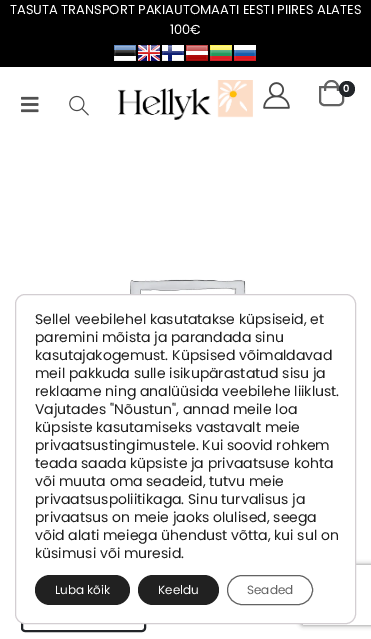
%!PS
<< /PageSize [371 639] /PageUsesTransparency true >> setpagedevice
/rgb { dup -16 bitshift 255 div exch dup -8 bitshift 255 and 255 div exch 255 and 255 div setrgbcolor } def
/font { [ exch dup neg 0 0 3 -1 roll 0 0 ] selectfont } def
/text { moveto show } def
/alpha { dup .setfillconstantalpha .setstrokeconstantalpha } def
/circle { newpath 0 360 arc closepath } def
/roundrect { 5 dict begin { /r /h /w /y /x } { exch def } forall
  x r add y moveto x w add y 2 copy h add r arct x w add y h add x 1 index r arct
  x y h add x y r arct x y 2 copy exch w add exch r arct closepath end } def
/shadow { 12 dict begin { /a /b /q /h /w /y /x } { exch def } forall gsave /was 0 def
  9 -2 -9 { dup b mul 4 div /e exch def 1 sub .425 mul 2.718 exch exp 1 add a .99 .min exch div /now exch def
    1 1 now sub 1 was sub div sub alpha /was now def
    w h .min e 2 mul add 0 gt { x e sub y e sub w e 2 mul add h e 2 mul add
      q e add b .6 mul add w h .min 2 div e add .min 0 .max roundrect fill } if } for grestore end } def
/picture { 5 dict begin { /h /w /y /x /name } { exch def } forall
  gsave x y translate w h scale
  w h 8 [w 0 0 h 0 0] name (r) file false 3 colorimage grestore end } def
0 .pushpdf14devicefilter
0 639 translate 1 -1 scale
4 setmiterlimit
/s1 { /Poppins-Regular 13 font 16#FFFFFF rgb } def
/s2 { /Poppins-SemiBold 10 font 16#FFFFFF rgb } def
/s3 { /Poppins-Regular 14 font 16#202020 rgb } def
/s4 { /Poppins-Regular 12 font 16#FFFFFF rgb } def
/s5 { /Poppins-Regular 12 font 16#636363 rgb } def
16#FFFFFF rgb
0 0 371 639 rectfill
16#000000 rgb
0 0 371 67 rectfill
s1
(TASUTA TRANSPORT PAKIAUTOMAATI EESTI PIIRES ALATES) 10 14 text
(100€) 170 34 text
(pic1.raw) 114 45 22 16 picture
(pic2.raw) 138 45 22 16 picture
(pic3.raw) 162 45 22 16 picture
(pic4.raw) 186 45 22 16 picture
(pic5.raw) 210 45 22 16 picture
(pic6.raw) 234 45 22 16 picture
(pic7.raw) 118 80 135 40 picture
(pic8.raw) 263 82 27 27 picture
16#626262 rgb
2 setlinewidth
320 87 moveto 343 87 lineto 343 101 lineto 343 103 341 105 339 105 curveto 324 105 lineto 322 105 320 103 320 101 curveto closepath stroke
331.5 80 moveto 335.5 80 339 83.5 339 87.5 curveto 339 91 lineto 324 91 lineto 324 87.5 lineto 324 83.5 327.5 80 331.5 80 curveto closepath 331.5 82 moveto 337 82 337 87 337 91 curveto 326 91 lineto 326 87 326 82 331.5 82 curveto closepath eofill
16#222529 rgb
347 89 8 circle fill
s2
(0) 343 92 text
(pic9.raw) 21 96 18 17 picture
(pic10.raw) 69 95 20 21 picture
(pic11.raw) 130 279 116 15 picture
16#222529 rgb
22 508 123 123 3 roundrect stroke
gsave
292 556 moveto 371 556 lineto 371 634 lineto 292 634 lineto closepath 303 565 moveto 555 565 lineto 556 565 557 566 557 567 curveto 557 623 lineto 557 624 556 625 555 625 curveto 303 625 lineto 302 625 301 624 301 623 curveto 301 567 lineto 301 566 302 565 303 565 curveto closepath eoclip newpath
16#808080 rgb
301 565 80 60 2 2.5 1 shadow
grestore
16#FFFFFF rgb
15.5 294.5 340 329 9.5 roundrect gsave fill grestore
16#D3CED2 rgb
1 setlinewidth
stroke
s3
(Sellel veebilehel kasutatakse küpsiseid, et) 35 324 text
(paremini mõista ja parandada sinu) 35 342 text
(kasutajakogemust. Küpsised võimaldavad) 35 360 text
(meil pakkuda sulle isikupärastatud sisu ja) 35 378 text
(reklaame ning analüüsida veebilehe liiklust.) 35 396 text
(Vajutades "Nõustun", annad meile loa) 35 414 text
(küpsiste kasutamiseks vastavalt meie) 35 432 text
(privaatsustingimustele. Kui soovid rohkem) 35 450 text
(teada saada küpsiste ja privaatsuse kohta) 35 468 text
(või muuta oma seadeid, tutvu meie) 35 486 text
(privaatsuspoliitikaga. Sinu turvalisus ja) 35 504 text
(privaatsus on meie jaoks olulised, seega) 35 522 text
(võid alati meiega ühendust võtta, kui sul on) 35 540 text
(küsimusi või muresid.) 35 558 text
16#212121 rgb
35 575 95 30 15 roundrect fill
s4
(Luba kõik) 55 594 text
16#212121 rgb
138 575 81 30 15 roundrect fill
s4
(Keeldu) 158 594 text
16#636363 rgb
227.5 575.5 85 29 14.5 roundrect stroke
(Seaded) 247 594 text
.poppdf14devicefilter showpage
